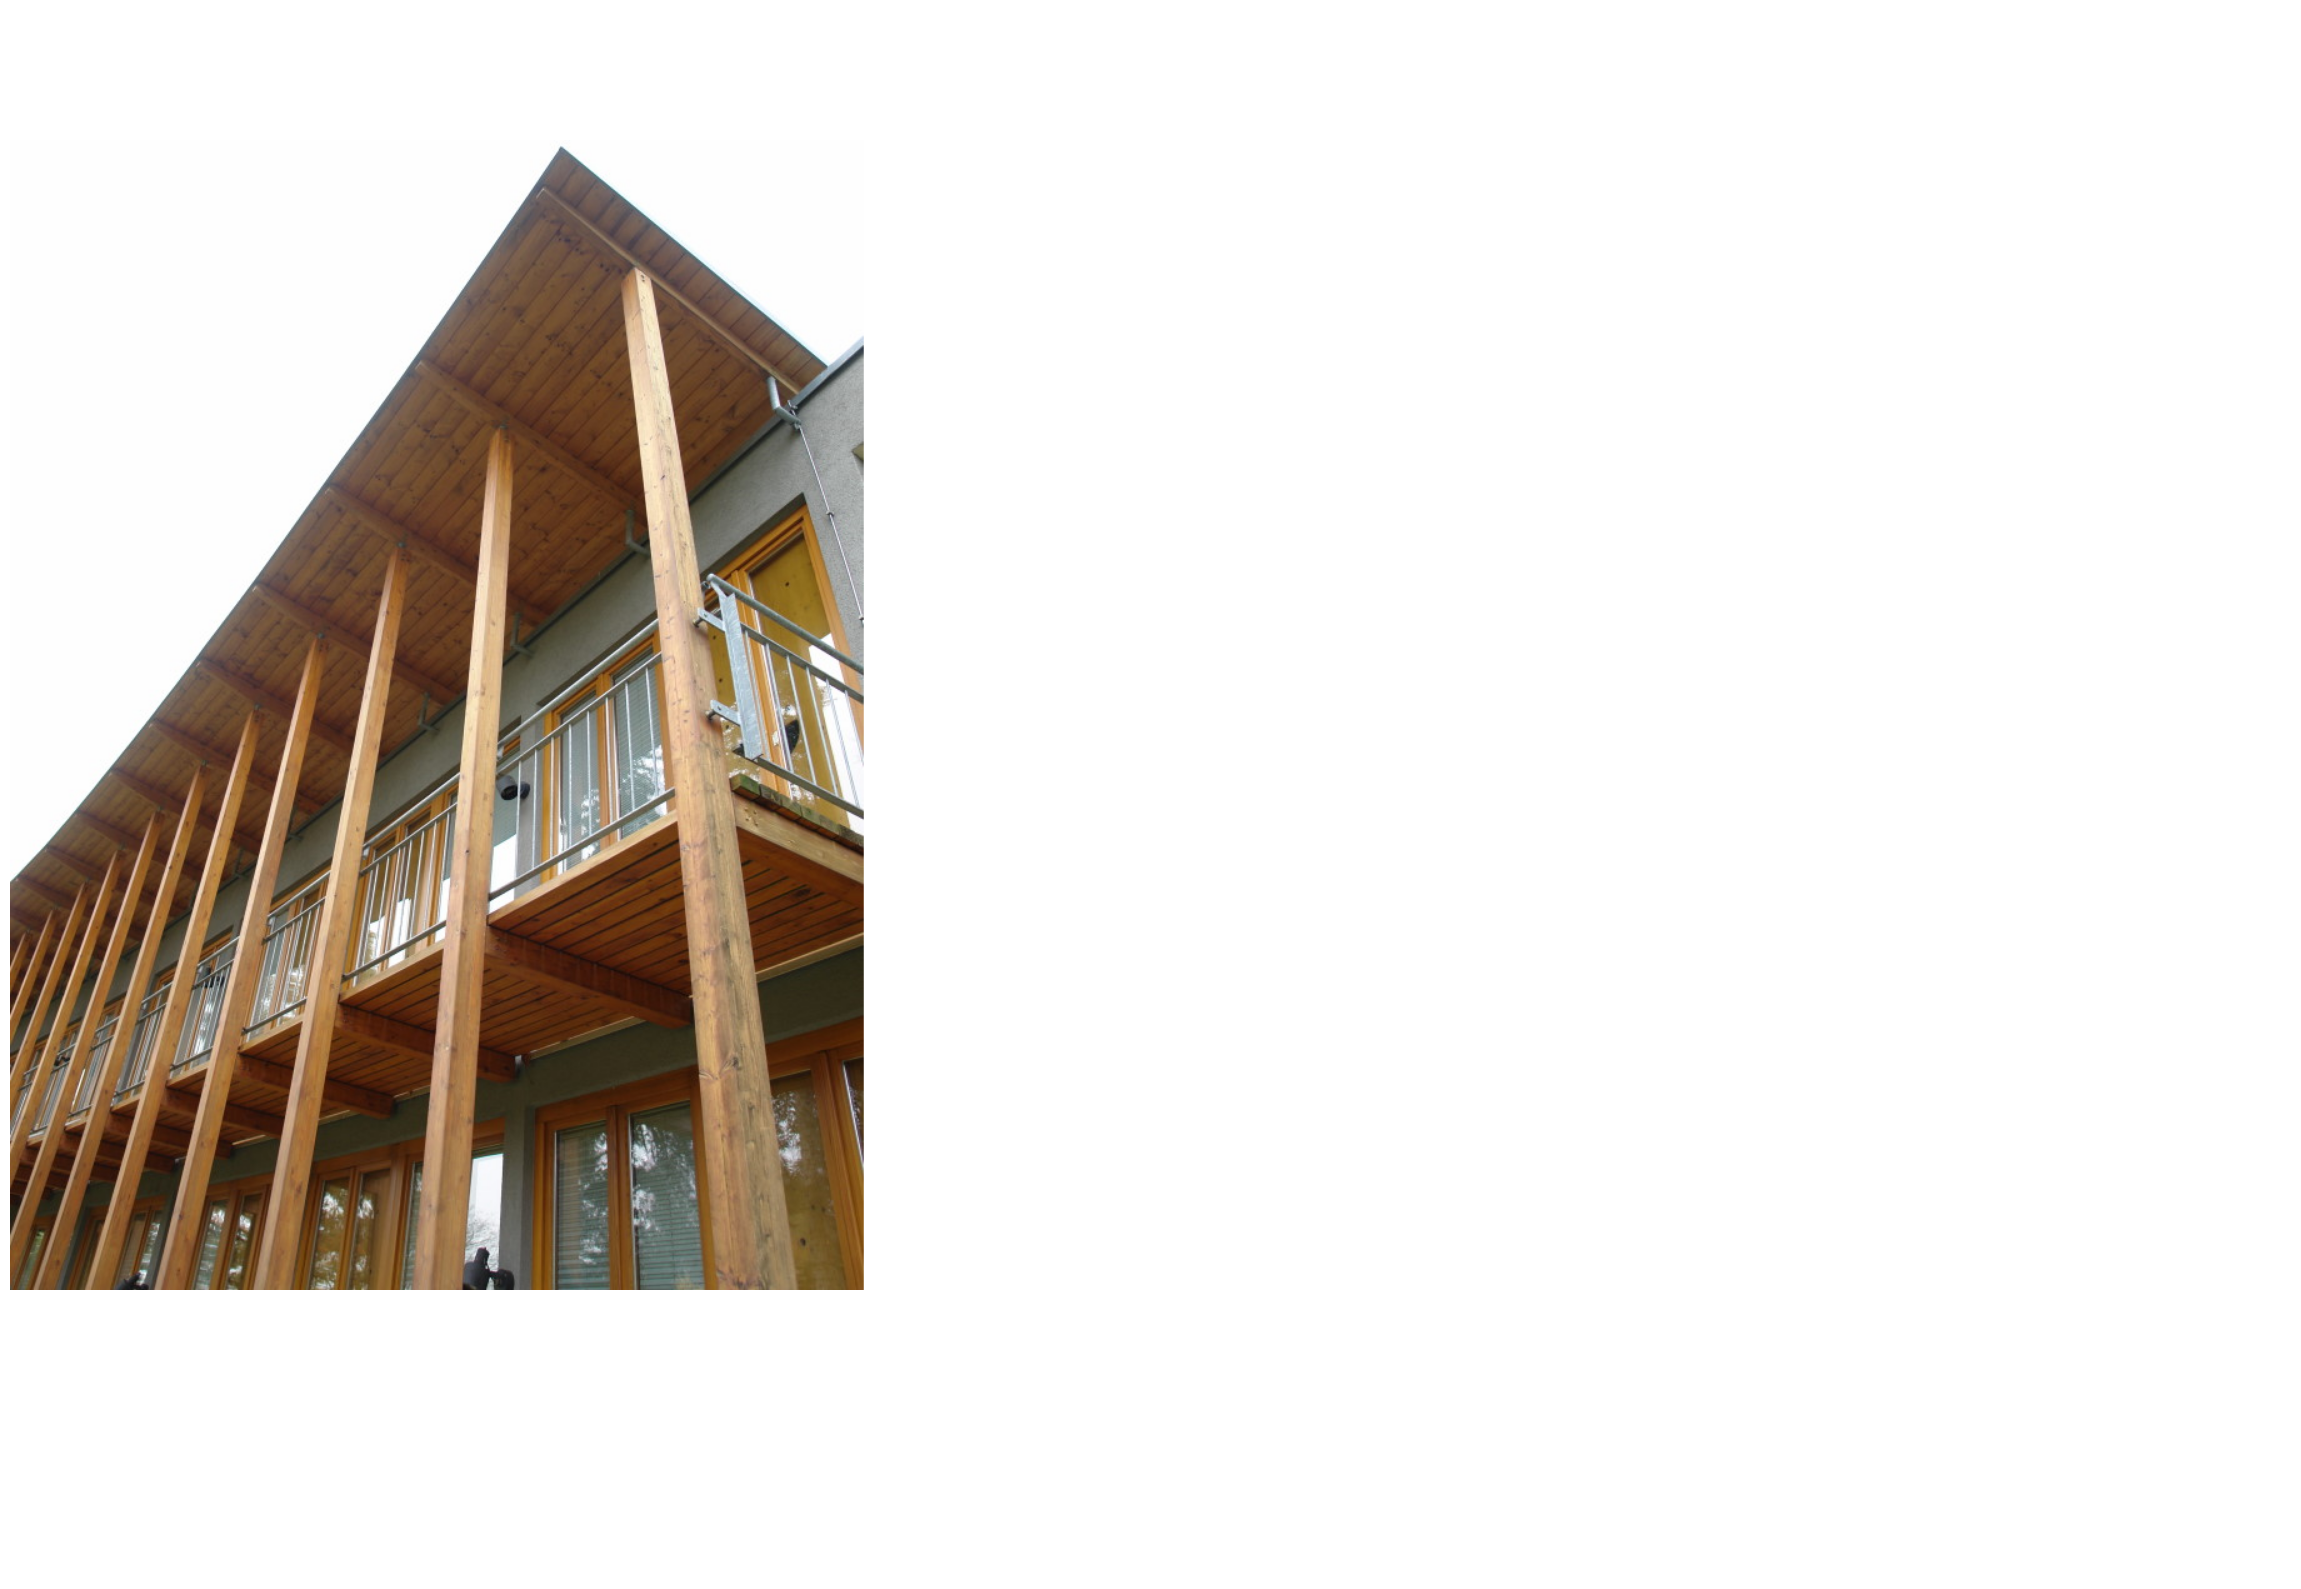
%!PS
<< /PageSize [2301 1589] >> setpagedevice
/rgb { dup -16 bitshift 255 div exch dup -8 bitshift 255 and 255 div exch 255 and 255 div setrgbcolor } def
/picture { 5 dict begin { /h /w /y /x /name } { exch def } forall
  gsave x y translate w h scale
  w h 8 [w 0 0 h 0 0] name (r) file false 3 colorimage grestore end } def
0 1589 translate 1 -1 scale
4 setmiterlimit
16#FFFFFF rgb
0 0 2301 1589 rectfill
(pic1.raw) 10 140 854 1150 picture
showpage
